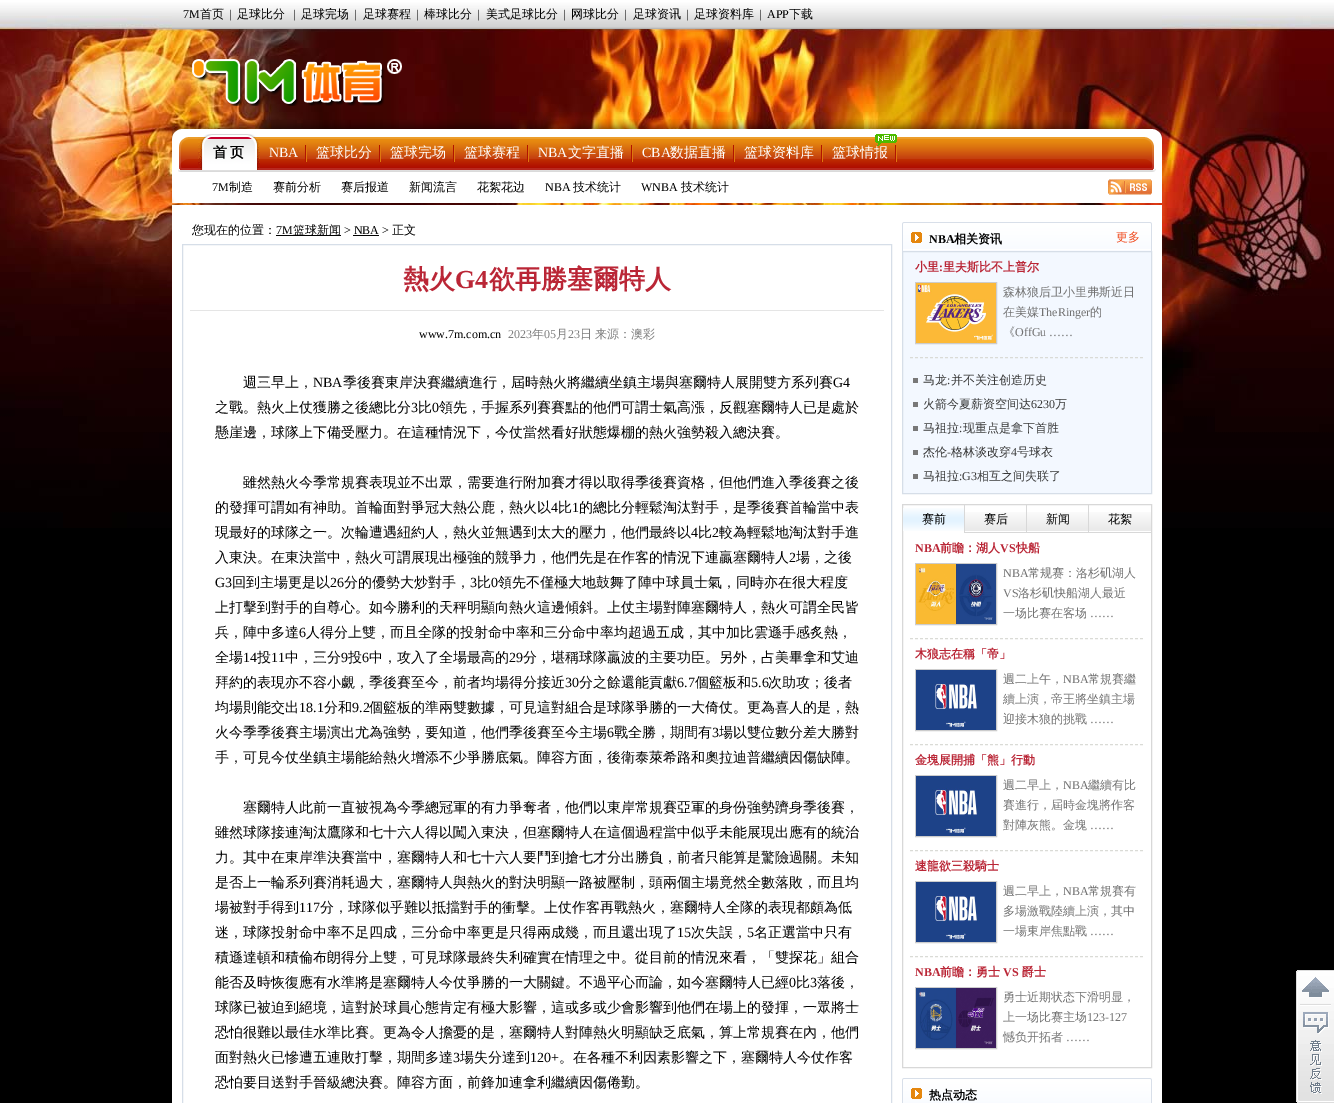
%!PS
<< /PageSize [1334 1103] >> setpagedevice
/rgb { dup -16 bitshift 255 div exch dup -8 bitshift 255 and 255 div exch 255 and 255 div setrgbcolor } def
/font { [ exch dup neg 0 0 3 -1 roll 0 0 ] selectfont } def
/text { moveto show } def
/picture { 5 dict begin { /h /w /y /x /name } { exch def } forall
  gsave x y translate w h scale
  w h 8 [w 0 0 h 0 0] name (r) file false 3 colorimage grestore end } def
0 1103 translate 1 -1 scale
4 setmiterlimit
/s1 { /LiberationSerif-Regular 12 font 16#000000 rgb } def
/s2 { /WenQuanYiZenHei-Medium 12 font 16#000000 rgb } def
/s3 { /LiberationSerif-Regular 14 font 16#FFFFFF rgb } def
/s4 { /WenQuanYiZenHei-Medium 14 font 16#FFFFFF rgb } def
/s5 { /WenQuanYiZenHei-Bold 26 font 16#BA2636 rgb } def
/s6 { /LiberationSerif-Bold 26 font 16#BA2636 rgb } def
/s7 { /LiberationSerif-Regular 12 font 16#7E7E7E rgb } def
/s8 { /WenQuanYiZenHei-Medium 12 font 16#7E7E7E rgb } def
/s9 { /WenQuanYiZenHei-Medium 14 font 16#000000 rgb } def
/s10 { /LiberationSerif-Regular 14 font 16#000000 rgb } def
/s11 { /LiberationSerif-Bold 12 font 16#000000 rgb } def
/s12 { /WenQuanYiZenHei-Bold 12 font 16#000000 rgb } def
/s13 { /WenQuanYiZenHei-Medium 12 font 16#F04E23 rgb } def
/s14 { /WenQuanYiZenHei-Bold 12 font 16#BA2636 rgb } def
/s15 { /LiberationSerif-Bold 12 font 16#BA2636 rgb } def
/s16 { /WenQuanYiZenHei-Medium 12 font 16#727272 rgb } def
/s17 { /LiberationSerif-Regular 12 font 16#727272 rgb } def
/s18 { /WenQuanYiZenHei-Medium 12 font 16#383838 rgb } def
/s19 { /LiberationSerif-Regular 12 font 16#383838 rgb } def
16#000000 rgb
0 0 1334 1103 rectfill
(pic1.raw) 0 0 1334 528 picture
(pic2.raw) 172 15 990 14 picture
s1
(7M) 183 18 text
s2
(首页) 200 18 text
s1
(|) 229 18 text
s2
(足球比分) 237 18 text
s1
(|) 293 18 text
s2
(足球完场) 301 18 text
s1
(|) 354 18 text
s2
(足球赛程) 363 18 text
s1
(|) 416 18 text
s2
(棒球比分) 424 18 text
s1
(|) 477 18 text
s2
(美式足球比分) 486 18 text
s1
(|) 563 18 text
s2
(网球比分) 571 18 text
s1
(|) 624 18 text
s2
(足球资讯) 633 18 text
s1
(|) 686 18 text
s2
(足球资料库) 694 18 text
s1
(|) 759 18 text
(APP) 767 18 text
s2
(下载) 789 18 text
(pic3.raw) 192 59 210 47 picture
(pic4.raw) 172 119 990 84 picture
(pic5.raw) 178 137 978 35 picture
(pic6.raw) 198 134 16 36 picture
(pic7.raw) 214 134 46 36 picture
/WenQuanYiZenHei-Bold 14 font
213 157 moveto -1 0 32 (首 页) widthshow
(pic8.raw) 305 145 2 17 picture
s3
(NBA) 269 157 text
(pic8.raw) 379 145 2 17 picture
s4
(篮球比分) 316 157 text
(pic8.raw) 453 145 2 17 picture
(篮球完场) 390 157 text
(pic8.raw) 527 145 2 17 picture
(篮球赛程) 464 157 text
(pic8.raw) 631 145 2 17 picture
s3
(NBA) 538 157 text
s4
(文字直播) 568 157 text
(pic8.raw) 733 145 2 17 picture
s3
(CBA) 642 157 text
s4
(数据直播) 670 157 text
(pic8.raw) 821 145 2 17 picture
(篮球资料库) 744 157 text
(pic8.raw) 895 145 2 17 picture
(篮球情报) 832 157 text
(pic9.raw) 875 134 22 12 picture
s1
(7M) 212 191 text
s2
(制造) 229 191 text
(赛前分析) 273 191 text
(赛后报道) 341 191 text
(新闻流言) 409 191 text
(花絮花边) 477 191 text
s1
(NBA) 545 191 text
s2
(技术统计) 573 191 text
s1
(WNBA) 641 191 text
s2
(技术统计) 681 191 text
(pic10.raw) 1108 179 44 16 picture
16#FFFFFF rgb
172 205 990 898 rectfill
s2
(您现在的位置：) 192 234 text
s1
(7M) 276 234 text
276 235 65 1 rectfill
s2
(篮球新闻) 293 234 text
s1
(> NBA >) 344 234 text
353 235 26 1 rectfill
s2
(正文) 392 234 text
16#D6DEE8 rgb
182.5 244.5 709 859 rectstroke
s5
(熱火) 403 288 text
s6
(G4) 455 288 text
s5
(欲再勝塞爾特人) 489 288 text
16#E5E5E5 rgb
190 310 694 1 rectfill
s1
(www.7m.com.cn) 419 338 text
s7
(2023) 508 338 text
s8
(年) 532 338 text
s7
(05) 544 338 text
s8
(月) 556 338 text
s7
(23) 568 338 text
s8
(日) 580 338 text
(来源：澳彩) 595 338 text
s9
(週三早上，) 243 387 text
s10
(NBA) 313 387 text
s9
(季後賽東岸決賽繼續進行，屆時熱火將繼續坐鎮主場與塞爾特人展開雙方系列賽) 343 387 text
s10
(G4) 833 387 text
s9
(之戰。熱火上仗獲勝之後總比分) 215 412 text
s10
(3) 411 412 text
s9
(比) 418 412 text
s10
(0) 432 412 text
s9
(領先，手握系列賽賽點的他們可謂士氣高漲，反觀塞爾特人已是處於) 439 412 text
(懸崖邊，球隊上下備受壓力。在這種情況下，今仗當然看好狀態爆棚的熱火強勢殺入總決賽。) 215 437 text
(雖然熱火今季常規賽表現並不出眾，需要進行附加賽才得以取得季後賽資格，但他們進入季後賽之後) 243 487 text
(的發揮可謂如有神助。首輪面對爭冠大熱公鹿，熱火以) 215 512 text
s10
(4) 551 512 text
s9
(比) 558 512 text
s10
(1) 572 512 text
s9
(的總比分輕鬆淘汰對手，是季後賽首輪當中表) 579 512 text
(現最好的球隊之一。次輪遭遇紐約人，熱火並無遇到太大的壓力，他們最終以) 215 537 text
s10
(4) 691 537 text
s9
(比) 698 537 text
s10
(2) 712 537 text
s9
(較為輕鬆地淘汰對手進) 719 537 text
(入東決。在東決當中，熱火可謂展現出極強的競爭力，他們先是在作客的情況下連贏塞爾特人) 215 562 text
s10
(2) 789 562 text
s9
(場，之後) 796 562 text
s10
(G3) 215 587 text
s9
(回到主場更是以) 232 587 text
s10
(26) 330 587 text
s9
(分的優勢大炒對手，) 344 587 text
s10
(3) 470 587 text
s9
(比) 477 587 text
s10
(0) 491 587 text
s9
(領先不僅極大地鼓舞了陣中球員士氣，同時亦在很大程度) 498 587 text
(上打擊到對手的自尊心。如今勝利的天秤明顯向熱火這邊傾斜。上仗主場對陣塞爾特人，熱火可謂全民皆) 215 612 text
(兵，陣中多達) 215 637 text
s10
(6) 299 637 text
s9
(人得分上雙，而且全隊的投射命中率和三分命中率均超過五成，其中加比雲遜手感炙熱，) 306 637 text
(全場) 215 662 text
s10
(14) 243 662 text
s9
(投) 257 662 text
s10
(11) 271 662 text
s9
(中，三分) 285 662 text
s10
(9) 341 662 text
s9
(投) 348 662 text
s10
(6) 362 662 text
s9
(中，攻入了全場最高的) 369 662 text
s10
(29) 509 662 text
s9
(分，堪稱球隊贏波的主要功臣。另外，占美畢拿和艾迪) 523 662 text
(拜約的表現亦不容小覷，季後賽至今，前者均場得分接近) 215 687 text
s10
(30) 565 687 text
s9
(分之餘還能貢獻) 579 687 text
s10
(6.7) 677 687 text
s9
(個籃板和) 695 687 text
s10
(5.6) 751 687 text
s9
(次助攻；後者) 768 687 text
(均場則能交出) 215 712 text
s10
(18.1) 299 712 text
s9
(分和) 324 712 text
s10
(9.2) 352 712 text
s9
(個籃板的準兩雙數據，可見這對組合是球隊爭勝的一大倚仗。更為喜人的是，熱) 369 712 text
(火今季季後賽主場演出尤為強勢，要知道，他們季後賽至今主場) 215 737 text
s10
(6) 607 737 text
s9
(戰全勝，期間有) 614 737 text
s10
(3) 712 737 text
s9
(場以雙位數分差大勝對) 719 737 text
(手，可見今仗坐鎮主場能給熱火增添不少爭勝底氣。陣容方面，後衛泰萊希路和奧拉迪普繼續因傷缺陣。) 215 762 text
(塞爾特人此前一直被視為今季總冠軍的有力爭奪者，他們以東岸常規賽亞軍的身份強勢躋身季後賽，) 243 812 text
(雖然球隊接連淘汰鷹隊和七十六人得以闖入東決，但塞爾特人在這個過程當中似乎未能展現出應有的統治) 215 837 text
(力。其中在東岸準決賽當中，塞爾特人和七十六人要鬥到搶七才分出勝負，前者只能算是驚險過關。未知) 215 862 text
(是否上一輪系列賽消耗過大，塞爾特人與熱火的對決明顯一路被壓制，頭兩個主場竟然全數落敗，而且均) 215 887 text
(場被對手得到) 215 912 text
s10
(117) 299 912 text
s9
(分，球隊似乎難以抵擋對手的衝擊。上仗作客再戰熱火，塞爾特人全隊的表現都頗為低) 320 912 text
(迷，球隊投射命中率不足四成，三分命中率更是只得兩成幾，而且還出現了) 215 937 text
s10
(15) 677 937 text
s9
(次失誤，) 691 937 text
s10
(5) 747 937 text
s9
(名正選當中只有) 754 937 text
(積遜達頓和積倫布朗得分上雙，可見球隊最終失利確實在情理之中。從目前的情況來看，「雙探花」組合) 215 962 text
(能否及時恢復應有水準將是塞爾特人今仗爭勝的一大關鍵。不過平心而論，如今塞爾特人已經) 215 987 text
s10
(0) 789 987 text
s9
(比) 796 987 text
s10
(3) 810 987 text
s9
(落後，) 817 987 text
(球隊已被迫到絕境，這對於球員心態肯定有極大影響，這或多或少會影響到他們在場上的發揮，一眾將士) 215 1012 text
(恐怕很難以最佳水準比賽。更為令人擔憂的是，塞爾特人對陣熱火明顯缺乏底氣，算上常規賽在內，他們) 215 1037 text
(面對熱火已慘遭五連敗打擊，期間多達) 215 1062 text
s10
(3) 453 1062 text
s9
(場失分達到) 460 1062 text
s10
(120+) 530 1062 text
s9
(。在各種不利因素影響之下，塞爾特人今仗作客) 559 1062 text
(恐怕要目送對手晉級總決賽。陣容方面，前鋒加連拿利繼續因傷倦勤。) 215 1087 text
(pic11.raw) 902 222 250 29 picture
s11
(NBA) 929 243 text
s12
(相关资讯) 954 243 text
s13
(更多) 1116 241 text
16#F3F8FF rgb
902.5 251.5 moveto 1151.5 251.5 lineto 1151.5 493.5 lineto 902.5 493.5 lineto closepath gsave fill grestore
16#D6DEE8 rgb
stroke
16#DADBD6 rgb
[3 2] 0 setdash
910 357.5 moveto 1143 357.5 lineto stroke
s14
(小里) 915 271 text
s15
(:) 939 271 text
s14
(里夫斯比不上普尔) 943 271 text
16#CCCCCC rgb
[] 0 setdash
915.5 282.5 81 61 rectstroke
(pic12.raw) 916 283 80 60 picture
s16
(森林狼后卫小里弗斯近日) 1003 296 text
(在美媒) 1003 316 text
s17
(TheRinger) 1039 316 text
s16
(的) 1090 316 text
(《) 1003 336 text
s17
(OffGu ……) 1015 336 text
16#787878 rgb
913 378 5 5 rectfill
s18
(马龙 并不关注创造历史) 923 384 text
s19
(:) 947 384 text
16#787878 rgb
913 402 5 5 rectfill
s18
(火箭今夏薪资空间达) 923 408 text
s19
(6230) 1031 408 text
s18
(万) 1055 408 text
16#787878 rgb
913 426 5 5 rectfill
s18
(马祖拉 现重点是拿下首胜) 923 432 text
s19
(:) 959 432 text
16#787878 rgb
913 450 5 5 rectfill
s18
(杰伦) 923 456 text
s19
(-) 947 456 text
s18
(格林谈改穿) 951 456 text
s19
(4) 1011 456 text
s18
(号球衣) 1017 456 text
16#787878 rgb
913 474 5 5 rectfill
s18
(马祖拉) 923 480 text
s19
(:G3) 959 480 text
s18
(相互之间失联了) 977 480 text
16#D8D8D8 rgb
902.5 504.5 249 563 rectstroke
(pic13.raw) 903 508 61 23 picture
964 505 1 28 rectfill
s2
(赛前) 922 523 text
(pic14.raw) 965 512 61 21 picture
16#D8D8D8 rgb
1026 505 1 28 rectfill
s2
(赛后) 984 523 text
(pic14.raw) 1027 512 61 21 picture
16#D8D8D8 rgb
1088 505 1 28 rectfill
s2
(新闻) 1046 523 text
(pic15.raw) 1089 512 62 21 picture
(花絮) 1108 523 text
16#DADBD6 rgb
[3 2] 0 setdash
910 638.5 moveto 1143 638.5 lineto stroke
s15
(NBA) 915 552 text
s14
(前瞻：湖人) 940 552 text
s15
(VS) 1000 552 text
s14
(快船) 1016 552 text
16#CCCCCC rgb
[] 0 setdash
915.5 563.5 81 61 rectstroke
(pic16.raw) 916 564 80 60 picture
s17
(NBA) 1003 577 text
s16
(常规赛：洛杉矶湖人) 1028 577 text
s17
(VS) 1003 597 text
s16
(洛杉矶快船湖人最近) 1018 597 text
(一场比赛在客场) 1003 617 text
s17
(……) 1090 617 text
16#DADBD6 rgb
[3 2] 0 setdash
910 744.5 moveto 1143 744.5 lineto stroke
s14
(木狼志在稱「帝」) 915 658 text
16#CCCCCC rgb
[] 0 setdash
915.5 669.5 81 61 rectstroke
(pic17.raw) 916 670 80 60 picture
s16
(週二上午，) 1003 683 text
s17
(NBA) 1063 683 text
s16
(常規賽繼) 1088 683 text
(續上演，帝王將坐鎮主場) 1003 703 text
(迎接木狼的挑戰) 1003 723 text
s17
(……) 1090 723 text
16#DADBD6 rgb
[3 2] 0 setdash
910 850.5 moveto 1143 850.5 lineto stroke
s14
(金塊展開捕「熊」行動) 915 764 text
16#CCCCCC rgb
[] 0 setdash
915.5 775.5 81 61 rectstroke
(pic17.raw) 916 776 80 60 picture
s16
(週二早上，) 1003 789 text
s17
(NBA) 1063 789 text
s16
(繼續有比) 1088 789 text
(賽進行，屆時金塊將作客) 1003 809 text
(對陣灰熊。金塊) 1003 829 text
s17
(……) 1090 829 text
16#DADBD6 rgb
[3 2] 0 setdash
910 956.5 moveto 1143 956.5 lineto stroke
s14
(速龍欲三殺騎士) 915 870 text
16#CCCCCC rgb
[] 0 setdash
915.5 881.5 81 61 rectstroke
(pic17.raw) 916 882 80 60 picture
s16
(週二早上，) 1003 895 text
s17
(NBA) 1063 895 text
s16
(常規賽有) 1088 895 text
(多場激戰陸續上演，其中) 1003 915 text
(一場東岸焦點戰) 1003 935 text
s17
(……) 1090 935 text
s15
(NBA) 915 976 text
s14
(前瞻：勇士) 940 976 text
s15
(VS) 1003 976 text
s14
(爵士) 1022 976 text
16#CCCCCC rgb
915.5 987.5 81 61 rectstroke
(pic18.raw) 916 988 80 60 picture
s16
(勇士近期状态下滑明显，) 1003 1001 text
(上一场比赛主场) 1003 1021 text
s17
(123-127) 1087 1021 text
s16
(憾负开拓者) 1003 1041 text
s17
(……) 1066 1041 text
(pic19.raw) 902 1078 250 25 picture
s12
(热点动态) 929 1099 text
(pic20.raw) 1296 970 38 36 picture
(pic21.raw) 1296 1006 38 97 picture
showpage
